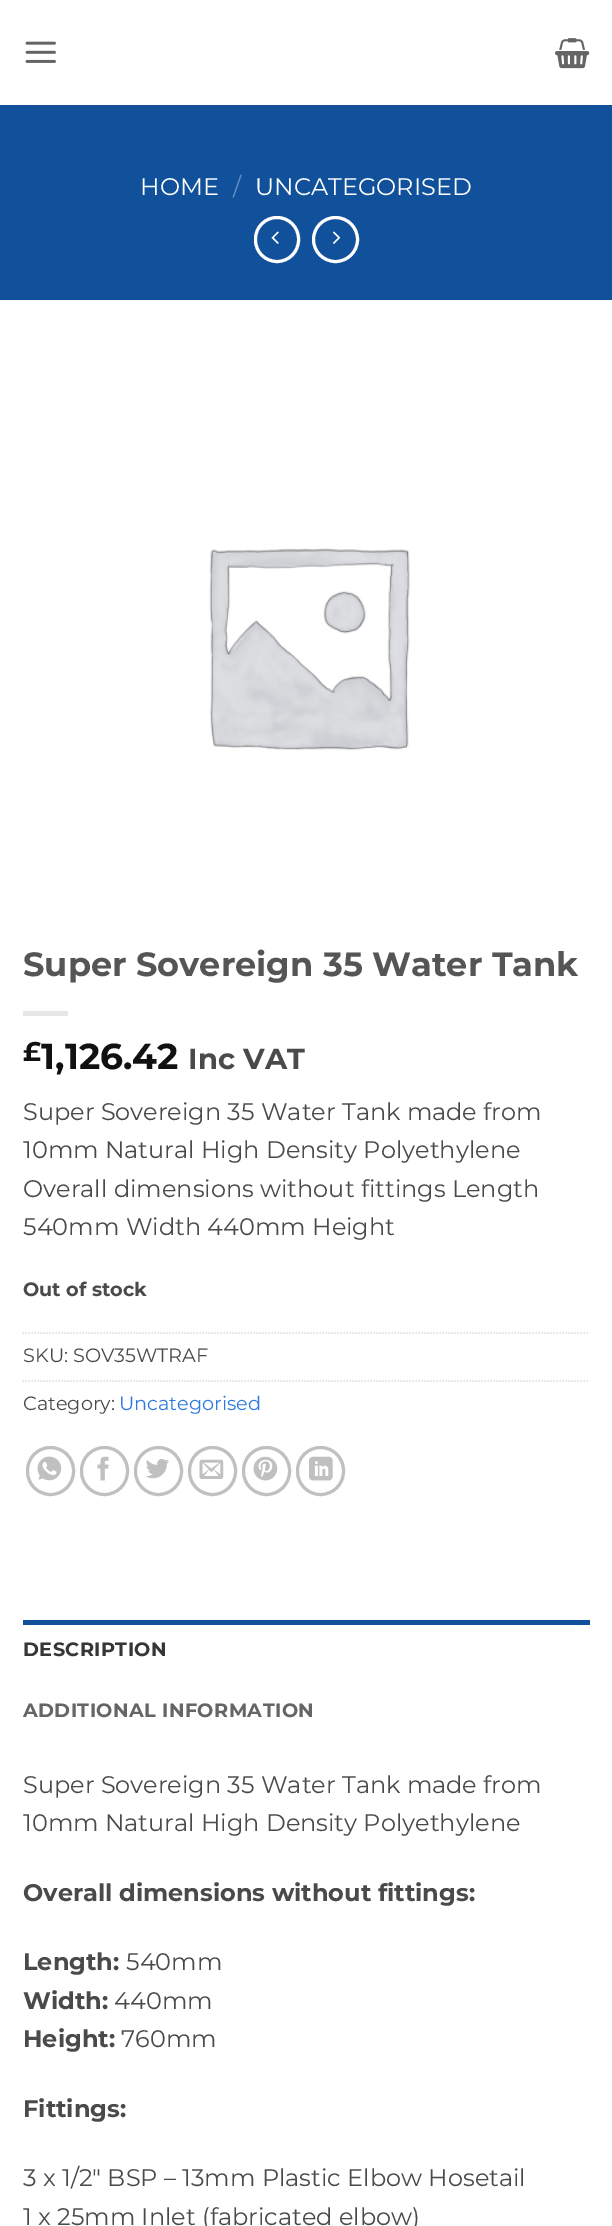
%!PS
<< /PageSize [612 2226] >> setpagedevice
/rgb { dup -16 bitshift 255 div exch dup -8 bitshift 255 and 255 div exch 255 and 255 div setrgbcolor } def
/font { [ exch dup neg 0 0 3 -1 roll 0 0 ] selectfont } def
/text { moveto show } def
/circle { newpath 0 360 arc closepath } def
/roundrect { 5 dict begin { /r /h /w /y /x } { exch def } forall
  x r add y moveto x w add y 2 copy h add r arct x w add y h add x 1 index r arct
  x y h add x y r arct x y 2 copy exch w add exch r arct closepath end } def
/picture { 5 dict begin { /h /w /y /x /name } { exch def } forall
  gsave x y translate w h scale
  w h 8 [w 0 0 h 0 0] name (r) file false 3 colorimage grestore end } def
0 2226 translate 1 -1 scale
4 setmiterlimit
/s1 { /Montserrat-Regular 24 font 16#FFFFFF rgb } def
/s2 { /Montserrat-Regular 24 font 16#648EBE rgb } def
/s3 { /Montserrat-Bold 33.6 font 16#555555 rgb } def
/s4 { /Montserrat-Bold 27 font 16#111111 rgb } def
/s5 { /Montserrat-Bold 36 font 16#111111 rgb } def
/s6 { /Montserrat-Bold 29 font 16#4A4A4A rgb } def
/s7 { /Montserrat-Regular 24 font 16#4A4A4A rgb } def
/s8 { /Montserrat-Bold 19.25 font 16#4A4A4A rgb } def
/s9 { /Montserrat-Regular 19.25 font 16#4A4A4A rgb } def
/s10 { /Montserrat-Regular 19.25 font 16#2D7BE1 rgb } def
/s11 { /Montserrat-Bold 24 font 16#4A4A4A rgb } def
16#FFFFFF rgb
0 0 612 2226 rectfill
(pic1.raw) 25 41 31 22 picture
(pic2.raw) 555 38 35 31 picture
16#11519B rgb
0 105 612 195 rectfill
16#175093 rgb
23 105 567 2 rectfill
s1
(HOME) 140 195 text
s2
(/) 233 195 text
s1
(UNCATEGORISED) 255 195 text
3 setlinewidth
255.5 217.5 43 44 21.5 roundrect stroke
(pic3.raw) 271 231 8 13 picture
335.5 239.5 22 circle stroke
(pic4.raw) 333 231 8 13 picture
(pic5.raw) 209 548 201 203 picture
s3
(Super Sovereign 35 Water Tank) 23 976 text
16#E6E6E6 rgb
23 1011 45 5 rectfill
s4
(£) 23 1061 text
s5
(1,126.42) 41 1069 text
s6
(Inc VAT) 188 1069 text
s7
(Super Sovereign 35 Water Tank made from) 23 1120 text
(10mm Natural High Density Polyethylene) 23 1158 text
(Overall dimensions without fittings Length) 23 1197 text
(540mm Width 440mm Height) 23 1235 text
s8
(Out of stock) 23 1296 text
16#DDDDDD rgb
1.5 setlinewidth
[1.5 1.5] 0 setdash
22.5 1333 moveto 589.5 1333 lineto stroke
s9
(SKU: SOV35WTRAF) 23 1362 text
16#DDDDDD rgb
22.5 1381 moveto 589.5 1381 lineto stroke
s9
(Category:) 23 1410 text
s10
(Uncategorised) 119 1410 text
16#C0C0C0 rgb
3 setlinewidth
[] 0 setdash
27.5 1447.5 46 47 23 roundrect stroke
(pic6.raw) 37 1456 25 25 picture
81.5 1447.5 46 47 23 roundrect stroke
(pic7.raw) 97 1456 12 25 picture
135.5 1447.5 46 47 23 roundrect stroke
(pic8.raw) 146 1459 23 20 picture
189.5 1447.5 46 47 23 roundrect stroke
(pic9.raw) 199 1459 25 20 picture
243.5 1447.5 46 47 23 roundrect stroke
(pic10.raw) 253 1456 25 25 picture
297.5 1447.5 46 47 23 roundrect stroke
(pic11.raw) 309 1456 24 25 picture
16#11519B rgb
23 1620 567 5 rectfill
/Montserrat-Bold 19.25 font
16#363636 rgb
23 1656 moveto 0.4 0 (DESCRIPTION) ashow
16#656565 rgb
23 1717 moveto 0.4 0 (ADDITIONAL INFORMATION) ashow
s7
(Super Sovereign 35 Water Tank made from) 23 1793 text
(10mm Natural High Density Polyethylene) 23 1831 text
s11
(Overall dimensions without fittings:) 23 1901 text
(Length:) 23 1970 text
s7
(540mm) 126 1970 text
s11
(Width:) 23 2009 text
s7
(440mm) 114 2009 text
s11
(Height:) 23 2047 text
s7
(760mm) 121 2047 text
s11
(Fittings:) 23 2117 text
s7
(3 x 1/2″ BSP – 13mm Plastic Elbow Hosetail) 23 2186 text
(1 x 25mm Inlet \(fabricated elbow\)) 23 2225 text
showpage
